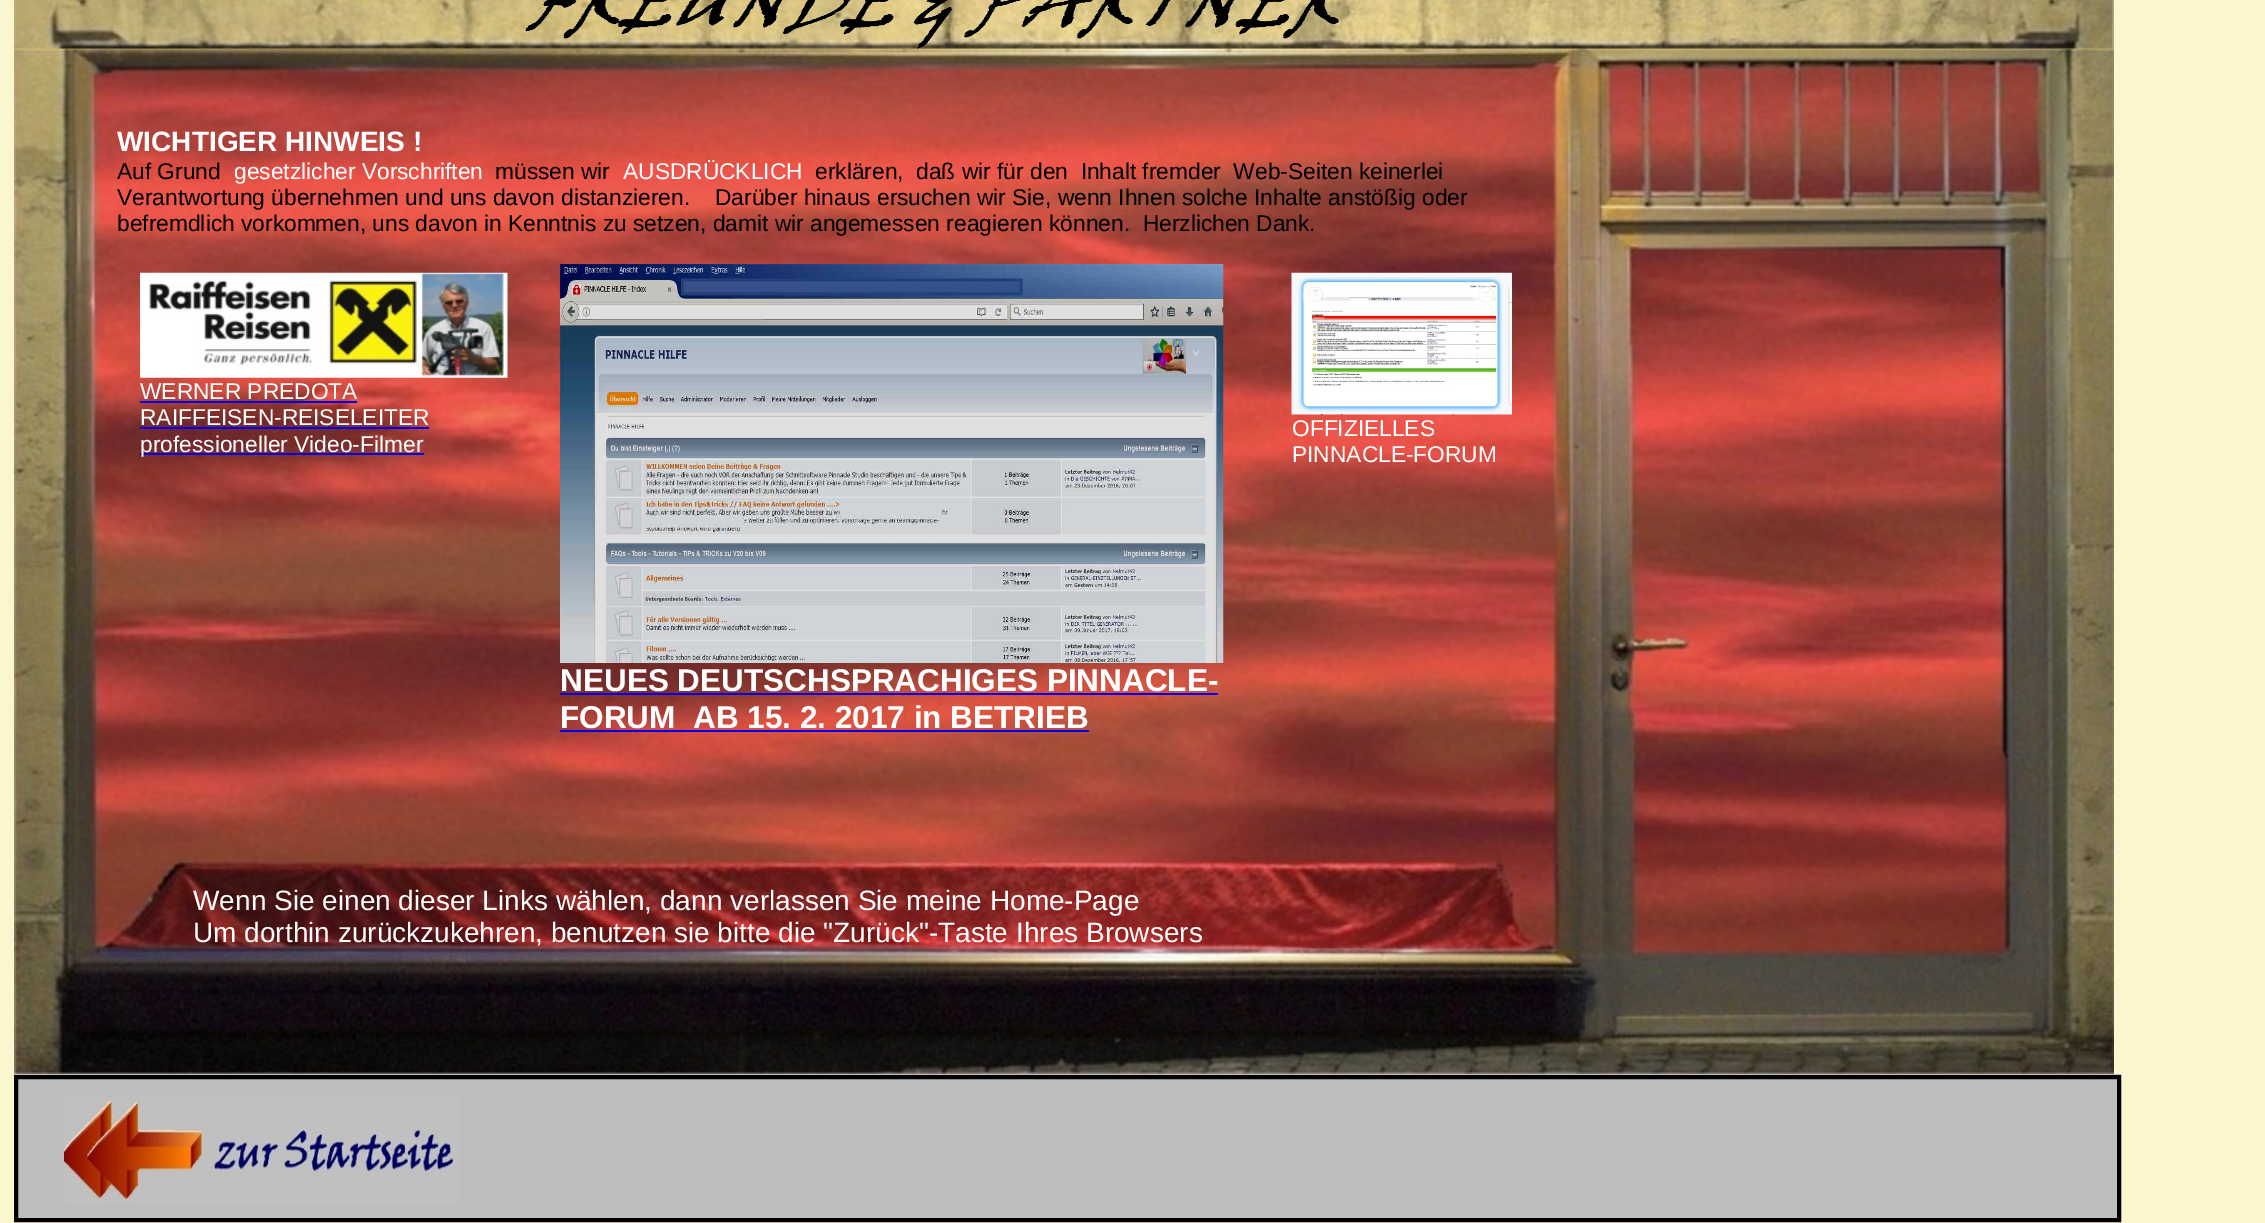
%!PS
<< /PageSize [2265 1223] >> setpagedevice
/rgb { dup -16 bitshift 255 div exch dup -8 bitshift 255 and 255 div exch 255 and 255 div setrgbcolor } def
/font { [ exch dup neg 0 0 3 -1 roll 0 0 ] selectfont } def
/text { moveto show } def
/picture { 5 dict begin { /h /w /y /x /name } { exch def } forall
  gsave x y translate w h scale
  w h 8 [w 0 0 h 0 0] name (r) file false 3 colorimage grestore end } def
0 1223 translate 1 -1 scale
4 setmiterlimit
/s1 { /LiberationSans-Bold 28 font 16#FFFFFF rgb } def
/s2 { /LiberationSans-Regular 22.75 font 16#000000 rgb } def
/s3 { /LiberationSans-Regular 22.75 font 16#FFFFFF rgb } def
/s4 { /LiberationSans-Bold 31.5 font 16#FFFFFF rgb } def
/s5 { /LiberationSans-Regular 28 font 16#FFFFFF rgb } def
16#FCF6CF rgb
0 0 2265 1223 rectfill
(pic1.raw) 14 0 2100 49 picture
(pic3.raw) 14 48 2100 1026 picture
(pic2.raw) 525 0 814 49 picture
s1
(WICHTIGER HINWEIS !) 117 151 text
s2
(Auf Grund) 117 179 text
s3
(gesetzlicher Vorschriften) 234 179 text
s2
(müssen wir) 495 179 text
s3
(AUSDRÜCKLICH) 623 179 text
s2
(erklären,  daß wir für den  Inhalt fremder  Web-Seiten keinerlei) 815 179 text
(Verantwortung übernehmen und uns davon distanzieren.) 117 205 text
(Darüber hinaus ersuchen wir Sie, wenn Ihnen solche Inhalte anstößig oder) 715 205 text
(befremdlich vorkommen, uns davon in Kenntnis zu setzen, damit wir angemessen reagieren können.  Herzlichen Dank.) 117 231 text
(pic4.raw) 140 272 368 106 picture
s3
(WERNER PREDOTA) 140 399 text
16#0000EE rgb
140 401 217 2 rectfill
s3
(RAIFFEISEN-REISELEITER) 140 425 text
16#0000EE rgb
140 427 289 2 rectfill
140 453 284 2 rectfill
s3
(professioneller Video-Filmer) 140 452 text
(pic5.raw) 1291 272 221 143 picture
(OFFIZIELLES) 1292 436 text
(PINNACLE-FORUM) 1292 462 text
(pic6.raw) 560 264 664 399 picture
s4
(NEUES DEUTSCHSPRACHIGES PINNACLE-) 560 691 text
16#0000EE rgb
560 693 658 2 rectfill
s4
(FORUM  AB 15. 2. 2017 in BETRIEB) 560 728 text
16#0000EE rgb
560 730 529 2 rectfill
s5
(Wenn Sie einen dieser Links wählen, dann verlassen Sie meine Home-Page) 193 910 text
(Um dorthin zurückzukehren, benutzen sie bitte die "Zurück"-Taste Ihres Browsers) 193 942 text
16#BEBEBE rgb
14 1074 2107 144 rectfill
16#000000 rgb
4 setlinewidth
16 1077 2103 143 rectstroke
(pic7.raw) 53 1095 406 109 picture
showpage
